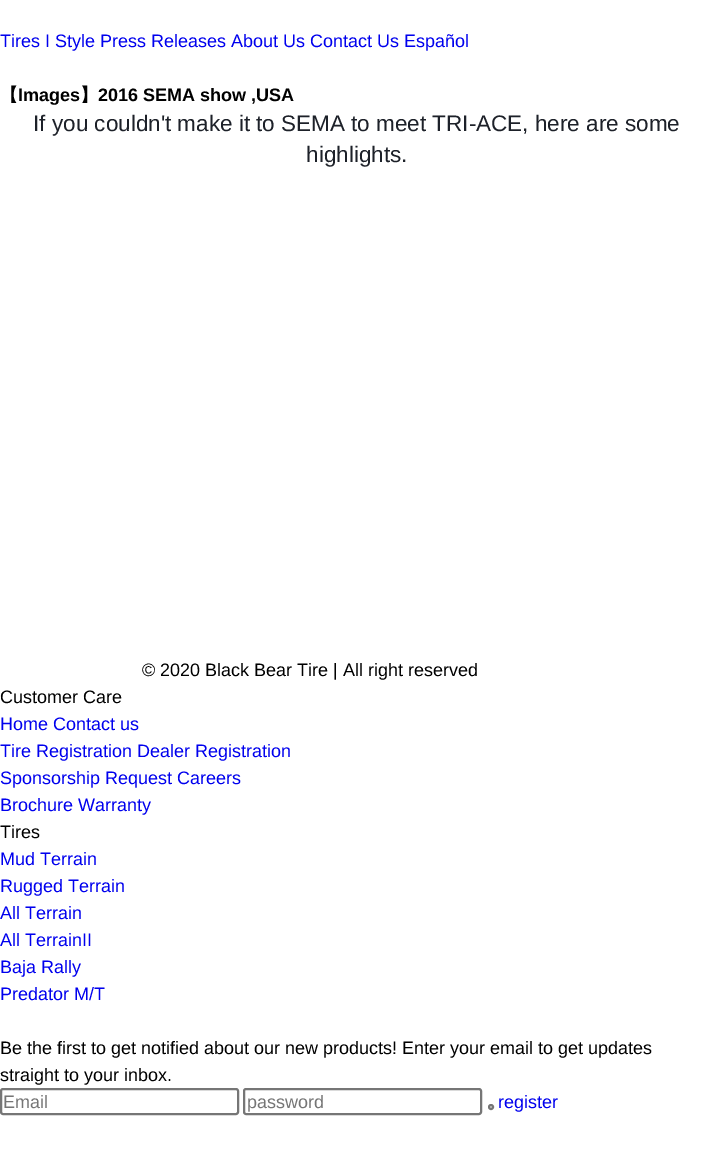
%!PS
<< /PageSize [712 1173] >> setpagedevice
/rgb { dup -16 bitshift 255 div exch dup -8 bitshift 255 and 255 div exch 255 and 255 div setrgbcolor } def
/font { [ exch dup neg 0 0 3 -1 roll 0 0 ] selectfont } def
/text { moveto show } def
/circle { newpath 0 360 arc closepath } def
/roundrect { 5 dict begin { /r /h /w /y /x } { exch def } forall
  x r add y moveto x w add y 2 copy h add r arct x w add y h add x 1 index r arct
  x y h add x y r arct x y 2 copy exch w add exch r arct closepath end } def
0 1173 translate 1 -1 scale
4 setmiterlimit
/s1 { /LiberationSans-Regular 18 font 16#0000EE rgb } def
/s2 { /WenQuanYiZenHei-Bold 18 font 16#000000 rgb } def
/s3 { /LiberationSans-Bold 18 font 16#000000 rgb } def
/s4 { /LiberationSans-Regular 22.5 font 16#1D2129 rgb } def
/s5 { /LiberationSans-Regular 18 font 16#000000 rgb } def
/s6 { /LiberationSans-Regular 18 font 16#757575 rgb } def
16#FFFFFF rgb
0 0 712 1173 rectfill
s1
(Tires I Style Press Releases About Us Contact Us Español) 0 47 text
s2
(【) 0 101 text
s3
(Images) 18 101 text
s2
(】) 80 101 text
s3
(2016 SEMA show ,USA) 98 101 text
s4
(If you couldn't make it to SEMA to meet TRI-ACE, here are some) 33 131 text
(highlights.) 306 162 text
s5
(© 2020 Black Bear Tire | All right reserved) 142 676 text
(Customer Care) 0 703 text
s1
(Home Contact us) 0 730 text
(Tire Registration Dealer Registration) 0 757 text
(Sponsorship Request Careers) 0 784 text
(Brochure Warranty) 0 811 text
s5
(Tires) 0 838 text
s1
(Mud Terrain) 0 865 text
(Rugged Terrain) 0 892 text
(All Terrain) 0 919 text
(All TerrainII) 0 946 text
(Baja Rally) 0 973 text
(Predator M/T) 0 1000 text
s5
(Be the first to get notified about our new products! Enter your email to get updates) 0 1054 text
(straight to your inbox.) 0 1081 text
16#767676 rgb
2 setlinewidth
1 1089 237 25 2 roundrect stroke
s6
(Email) 3 1108 text
16#767676 rgb
244 1089 237 25 2 roundrect stroke
s6
(password) 247 1108 text
16#EFEFEF rgb
491 1107 2 circle gsave fill grestore
16#767676 rgb
stroke
s1
(register) 498 1108 text
showpage
